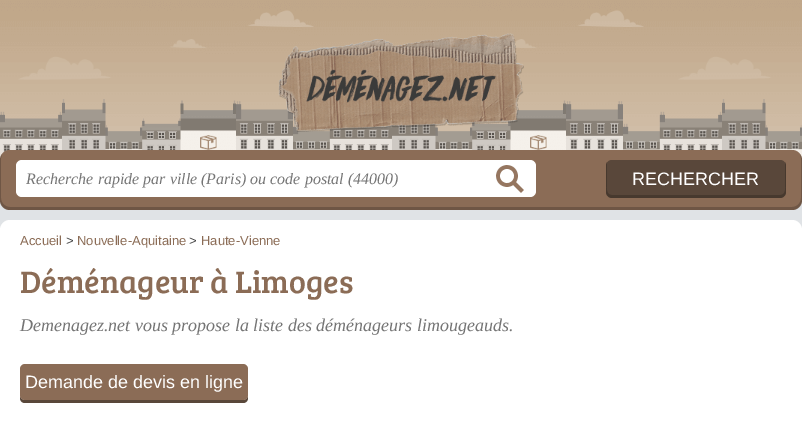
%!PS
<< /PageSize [802 423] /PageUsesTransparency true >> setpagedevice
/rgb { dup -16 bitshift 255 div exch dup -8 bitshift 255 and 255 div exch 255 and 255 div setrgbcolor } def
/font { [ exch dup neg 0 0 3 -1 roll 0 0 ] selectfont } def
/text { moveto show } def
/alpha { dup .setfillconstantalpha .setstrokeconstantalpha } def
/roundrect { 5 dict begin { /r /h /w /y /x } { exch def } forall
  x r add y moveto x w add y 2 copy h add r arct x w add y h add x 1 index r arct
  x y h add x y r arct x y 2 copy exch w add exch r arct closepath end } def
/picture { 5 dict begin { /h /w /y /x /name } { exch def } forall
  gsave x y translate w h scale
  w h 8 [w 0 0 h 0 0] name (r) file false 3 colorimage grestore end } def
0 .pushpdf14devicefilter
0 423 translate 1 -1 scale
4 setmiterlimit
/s1 { /LiberationSerif-Italic 16 font 16#757575 rgb } def
/s2 { /LiberationSans-Regular 18 font 16#FFFFFF rgb } def
/s3 { /LiberationSans-Regular 13 font 16#8B6C56 rgb } def
/s4 { /LiberationSans-Regular 13 font 16#444444 rgb } def
/s5 { /BreeSerif-Regular 32 font 16#8B6C56 rgb } def
/s6 { /LiberationSerif-Italic 18 font 16#757575 rgb } def
16#E0E3E6 rgb
0 0 802 423 rectfill
(pic1.raw) 0 0 802 160 picture
(pic2.raw) 278 33 246 102 picture
16#8B6C56 rgb
0 150 802 60 10 roundrect fill
0.2 alpha
16#000000 rgb
2 154 moveto 1 156 0 158 0 160 curveto 0 200 lineto 0 206 4 210 10 210 curveto 792 210 lineto 798 210 802 206 802 200 curveto 802 160 lineto 802 158 801 156 800 154 curveto 801 158 lineto 801 198 lineto 801 203 797 207 792 207 curveto 10 207 lineto 5 207 1 203 1 198 curveto 1 158 lineto closepath fill
1 alpha
16#FFFFFF rgb
16 160 520 37 6 roundrect fill
(pic3.raw) 496 165 28 28 picture
s1
(Recherche rapide par ville \(Paris\) ou code postal \(44000\)) 26 184 text
16#59473A rgb
606 160 180 38 6 roundrect fill
0.2 alpha
16#000000 rgb
607 162 moveto 606 163 606 165 606 166 curveto 606 192 lineto 606 195 609 198 612 198 curveto 780 198 lineto 783 198 786 195 786 192 curveto 786 166 lineto 786 165 786 163 785 162 curveto 785 181 lineto 785 186 787 195 780 195 curveto 612 195 lineto 605 195 607 186 607 181 curveto closepath fill
1 alpha
s2
(RECHERCHER) 632 185 text
10 220 moveto 792 220 lineto 797.5 220 802 224.5 802 230 curveto 802 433 lineto 0 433 lineto 0 230 lineto 0 224.5 4.5 220 10 220 curveto closepath fill
s3
(Accueil) 20 245 text
s4
(>) 66 245 text
s3
(Nouvelle-Aquitaine) 77 245 text
s4
(>) 189 245 text
s3
(Haute-Vienne) 201 245 text
s5
(Déménageur à Limoges) 20 293 text
s6
(Demenagez.net vous propose la liste des déménageurs limougeauds.) 20 331 text
16#59473A rgb
20 395 moveto 20 398 lineto 20 401 22 403 25 403 curveto 243 403 lineto 246 403 248 401 248 398 curveto 248 395 lineto 248 398 246 400 243 400 curveto 25 400 lineto 22 400 20 398 20 395 curveto closepath fill
16#8B6C56 rgb
20 364 228 36 5 roundrect fill
s2
(Demande de devis en ligne) 25 388 text
.poppdf14devicefilter showpage
